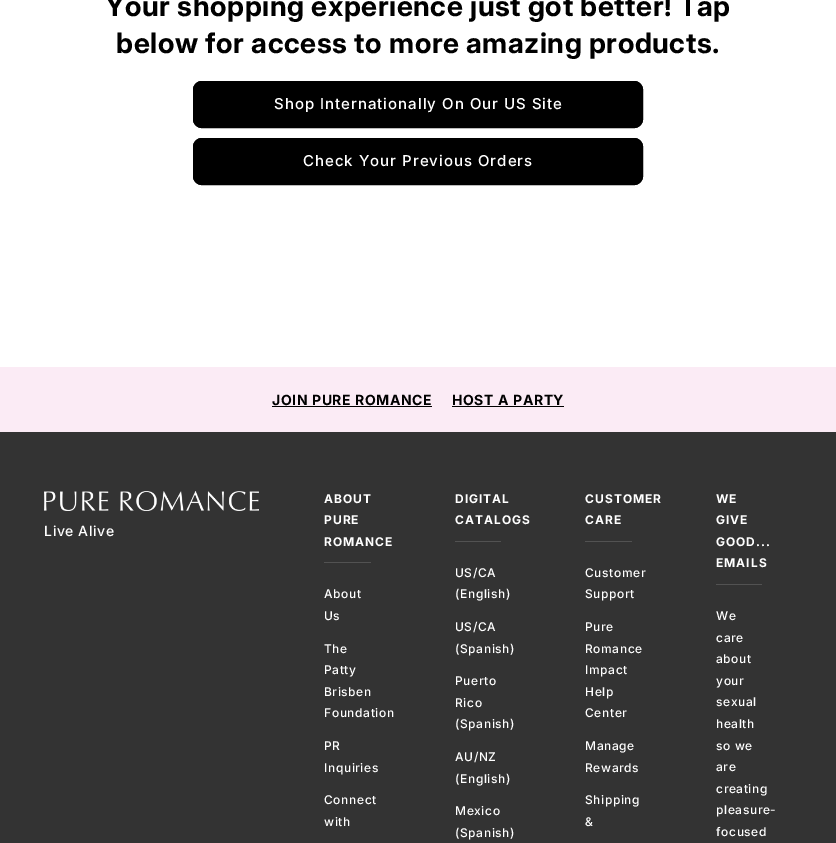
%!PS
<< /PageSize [836 843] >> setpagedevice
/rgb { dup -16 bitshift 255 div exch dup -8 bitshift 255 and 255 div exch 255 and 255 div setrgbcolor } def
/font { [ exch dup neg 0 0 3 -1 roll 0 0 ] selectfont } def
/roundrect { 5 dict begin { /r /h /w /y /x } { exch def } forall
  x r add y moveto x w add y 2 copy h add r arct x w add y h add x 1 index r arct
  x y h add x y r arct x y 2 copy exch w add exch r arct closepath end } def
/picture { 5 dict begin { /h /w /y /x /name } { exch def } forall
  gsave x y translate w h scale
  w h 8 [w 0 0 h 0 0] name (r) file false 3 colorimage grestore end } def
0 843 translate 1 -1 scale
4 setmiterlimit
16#FFFFFF rgb
0 0 836 843 rectfill
/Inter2-Bold 28 font
16#000000 rgb
105 16 moveto 0.6 0 (Your shopping experience just got better! Tap) ashow
116 53 moveto 0.6 0 (below for access to more amazing products.) ashow
193 81 450 47 9 roundrect fill
193.5 81.5 449 46 8.5 roundrect stroke
/Inter-Medium 15 font
16#FFFFFF rgb
274 109 moveto 1 0 (Shop Internationally On Our US Site) ashow
16#000000 rgb
193 138 450 47 9 roundrect fill
193.5 138.5 449 46 8.5 roundrect stroke
16#FFFFFF rgb
303 166 moveto 1 0 (Check Your Previous Orders) ashow
16#FBEBF5 rgb
0 367 836 65 rectfill
/Inter-Bold 14 font
16#000000 rgb
272 405 moveto 0.6 0 (JOIN PURE ROMANCE) ashow
272 406 160 1 rectfill
452 405 moveto 0.6 0 (HOST A PARTY) ashow
452 406 112 1 rectfill
16#333333 rgb
0 432 836 411 rectfill
(pic1.raw) 44 491 215 20 picture
/Inter-Medium 14 font
16#FFFFFF rgb
44 536 moveto 0.6 0 (Live Alive) ashow
16#525252 rgb
324 562 47 1 rectfill
/Inter-Bold 12 font
16#FFFFFF rgb
324 503 moveto 1 0 (ABOUT) ashow
324 524 moveto 1 0 (PURE) ashow
324 546 moveto 1 0 (ROMANCE) ashow
/Inter-Medium 12 font
324 598 moveto 0.6 0 (About) ashow
324 620 moveto 0.6 0 (Us) ashow
324 653 moveto 0.6 0 (The) ashow
324 674 moveto 0.6 0 (Patty) ashow
324 696 moveto 0.6 0 (Brisben) ashow
324 717 moveto 0.6 0 (Foundation) ashow
324 750 moveto 0.6 0 (PR) ashow
324 772 moveto 0.6 0 (Inquiries) ashow
324 804 moveto 0.6 0 (Connect) ashow
324 826 moveto 0.6 0 (with) ashow
16#525252 rgb
455 541 46 1 rectfill
/Inter-Bold 12 font
16#FFFFFF rgb
455 503 moveto 1 0 (DIGITAL) ashow
455 524 moveto 1 0 (CATALOGS) ashow
/Inter-Medium 12 font
455 577 moveto 0.6 0 (US/CA) ashow
455 598 moveto 0.6 0 (\(English\)) ashow
455 631 moveto 0.6 0 (US/CA) ashow
455 653 moveto 0.6 0 (\(Spanish\)) ashow
455 685 moveto 0.6 0 (Puerto) ashow
455 707 moveto 0.6 0 (Rico) ashow
455 728 moveto 0.6 0 (\(Spanish\)) ashow
455 761 moveto 0.6 0 (AU/NZ) ashow
455 783 moveto 0.6 0 (\(English\)) ashow
455 815 moveto 0.6 0 (Mexico) ashow
455 837 moveto 0.6 0 (\(Spanish\)) ashow
16#525252 rgb
585 541 47 1 rectfill
/Inter-Bold 12 font
16#FFFFFF rgb
585 503 moveto 1 0 (CUSTOMER) ashow
585 524 moveto 1 0 (CARE) ashow
/Inter-Medium 12 font
585 577 moveto 0.6 0 (Customer) ashow
585 598 moveto 0.6 0 (Support) ashow
585 631 moveto 0.6 0 (Pure) ashow
585 653 moveto 0.6 0 (Romance) ashow
585 674 moveto 0.6 0 (Impact) ashow
585 696 moveto 0.6 0 (Help) ashow
585 717 moveto 0.6 0 (Center) ashow
585 750 moveto 0.6 0 (Manage) ashow
585 772 moveto 0.6 0 (Rewards) ashow
585 804 moveto 0.6 0 (Shipping) ashow
585 826 moveto 0.6 0 (&) ashow
16#525252 rgb
716 584 46 1 rectfill
/Inter-Bold 12 font
16#FFFFFF rgb
716 503 moveto 1 0 (WE) ashow
716 524 moveto 1 0 (GIVE) ashow
716 546 moveto 1 0 (GOOD...) ashow
716 567 moveto 1 0 (EMAILS) ashow
/Inter-Medium 12 font
716 620 moveto 0.6 0 (We) ashow
716 642 moveto 0.6 0 (care) ashow
716 663 moveto 0.6 0 (about) ashow
716 685 moveto 0.6 0 (your) ashow
716 706 moveto 0.6 0 (sexual) ashow
716 728 moveto 0.6 0 (health) ashow
716 750 moveto 0.6 0 (so we) ashow
716 771 moveto 0.6 0 (are) ashow
716 793 moveto 0.6 0 (creating) ashow
716 814 moveto 0.6 0 (pleasure-) ashow
716 836 moveto 0.6 0 (focused) ashow
showpage
